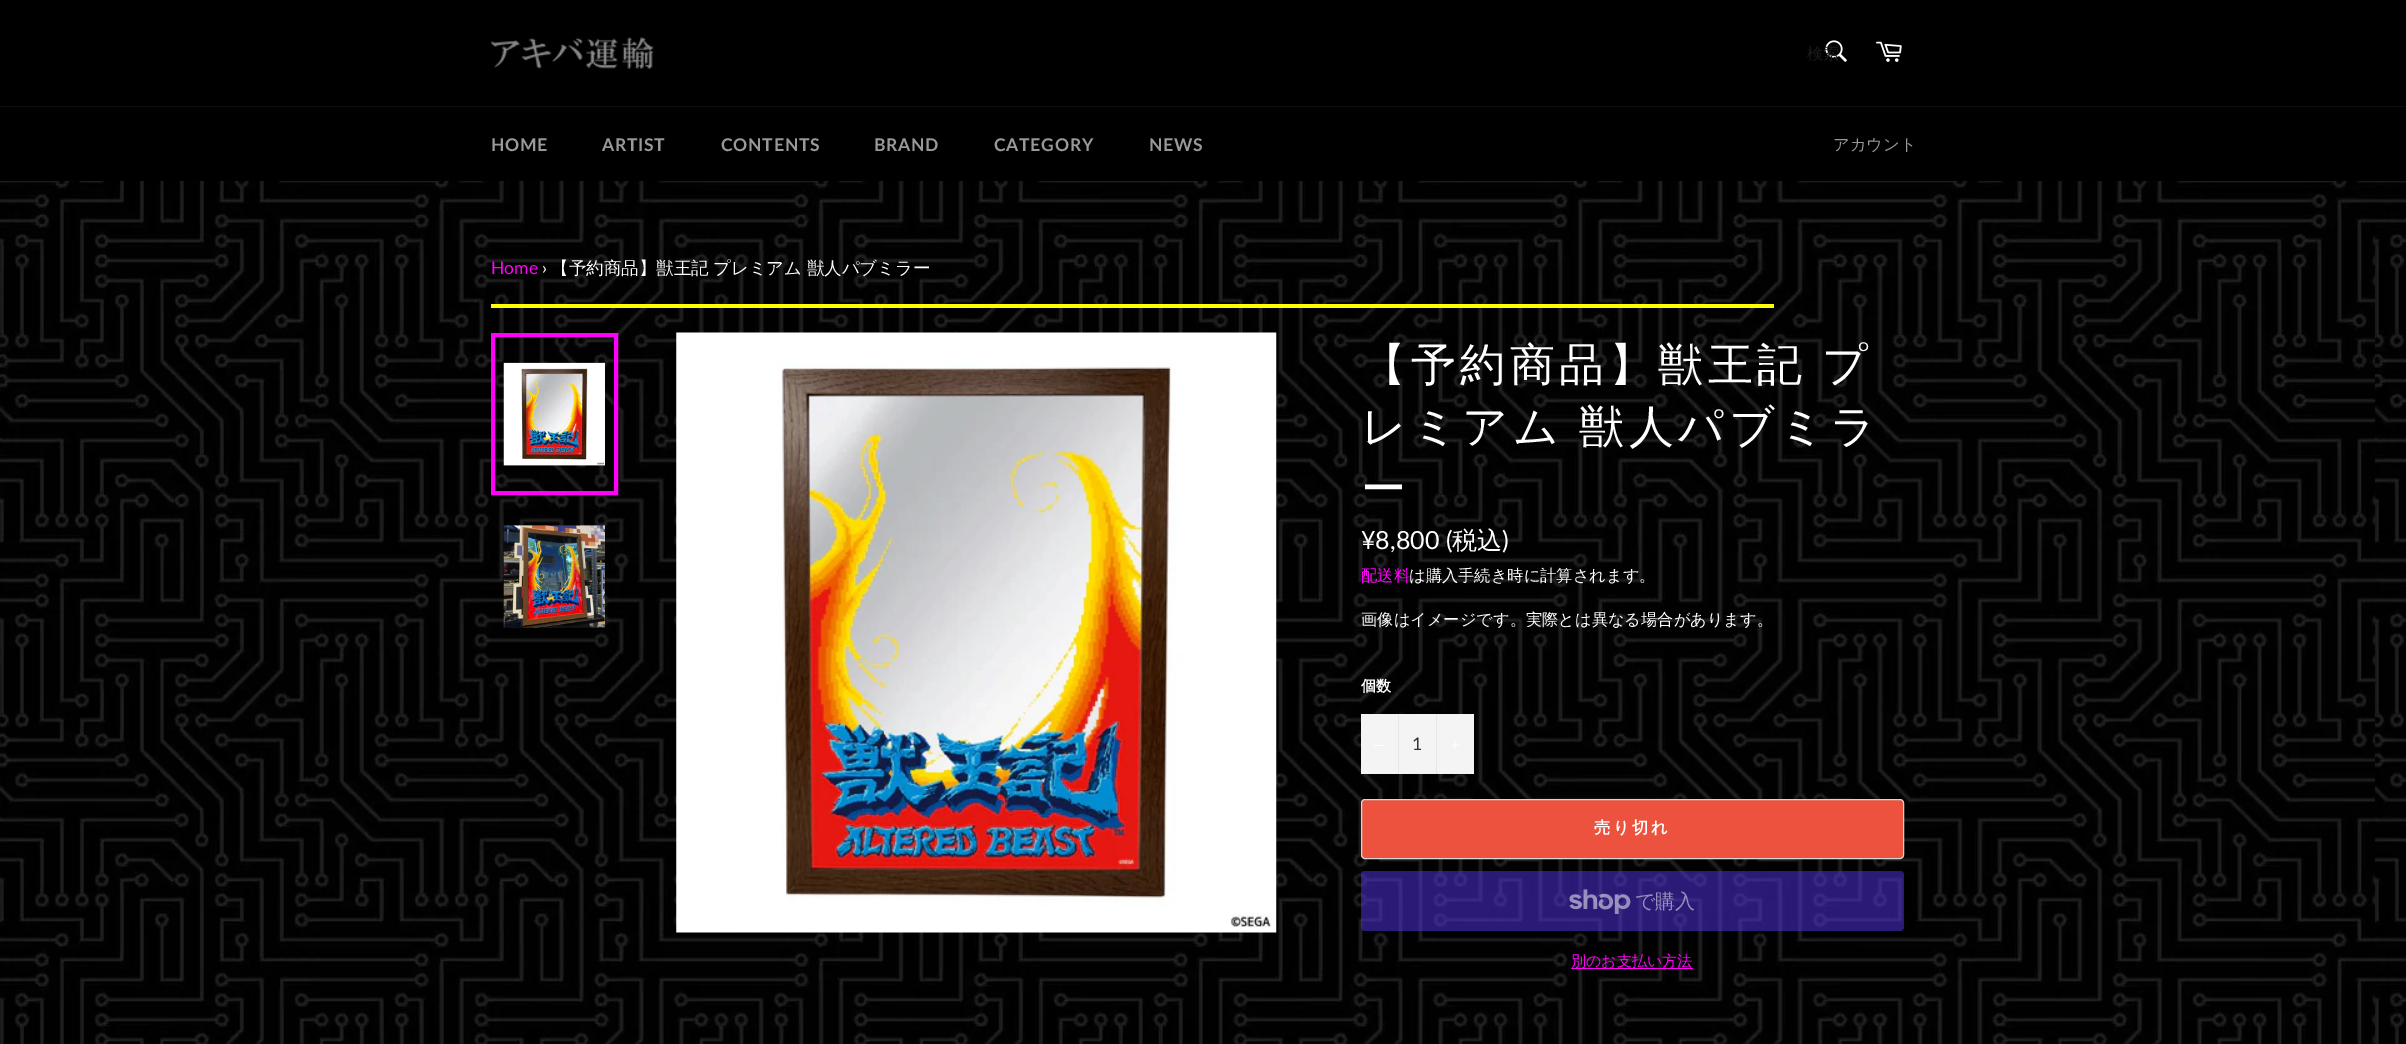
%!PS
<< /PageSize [2406 1044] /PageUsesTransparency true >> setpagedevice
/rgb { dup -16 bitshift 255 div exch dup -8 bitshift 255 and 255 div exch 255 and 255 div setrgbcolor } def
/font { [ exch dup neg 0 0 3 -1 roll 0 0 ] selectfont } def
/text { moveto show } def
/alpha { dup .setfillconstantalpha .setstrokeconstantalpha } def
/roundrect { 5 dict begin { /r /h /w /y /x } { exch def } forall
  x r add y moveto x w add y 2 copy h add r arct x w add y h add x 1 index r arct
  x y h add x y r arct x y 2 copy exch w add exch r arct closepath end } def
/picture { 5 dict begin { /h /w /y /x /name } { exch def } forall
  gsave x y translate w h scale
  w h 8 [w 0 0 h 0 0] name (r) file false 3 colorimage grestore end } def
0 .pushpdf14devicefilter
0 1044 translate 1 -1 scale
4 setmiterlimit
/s1 { /WenQuanYiZenHei-Medium 16.25 font 16#1B1B1B rgb } def
/s2 { /WenQuanYiZenHei-Medium 16.25 font 16#999999 rgb } def
/s3 { /Lato-Regular 17.5 font 16#FF00F8 rgb } def
/s4 { /Lato-Regular 17.5 font 16#FFFFFF rgb } def
/s5 { /Lato-Regular 25 font 16#FFFFFF rgb } def
/s6 { /WenQuanYiZenHei-Medium 25 font 16#FFFFFF rgb } def
/s7 { /WenQuanYiZenHei-Medium 16.25 font 16#FF00F8 rgb } def
/s8 { /WenQuanYiZenHei-Medium 16.25 font 16#FFFFFF rgb } def
/s9 { /WenQuanYiZenHei-Bold 15 font 16#FFFFFF rgb } def
/s10 { /Lato-Regular 17.5 font 16#333333 rgb } def
/s11 { /WenQuanYiZenHei-Medium 20 font 16#968EBC rgb } def
/s12 { /WenQuanYiZenHei-Medium 15 font 16#FF00F8 rgb } def
16#FFFFFF rgb
0 0 2406 1044 rectfill
(pic1.raw) 0 181 2406 863 picture
16#000000 rgb
0 0 2406 106 rectfill
(pic2.raw) 491 37 163 32 picture
(pic3.raw) 1825 40 22 22 picture
s1
(検索) 1807 59 text
(pic4.raw) 1876 41 26 21 picture
16#000000 rgb
0 107 2406 74 rectfill
16#0D0D0D rgb
0 106 2406 1 rectfill
/Lato-Bold 17.5 font
16#999999 rgb
491 151 moveto 0.75 0 (HOME) ashow
602 151 moveto 0.75 0 (ARTIST) ashow
721 151 moveto 0.75 0 (CONTENTS) ashow
874 151 moveto 0.75 0 (BRAND) ashow
994 151 moveto 0.75 0 (CATEGORY) ashow
1149 151 moveto 0.75 0 (NEWS) ashow
s2
(アカウント) 1833 150 text
s3
(Home) 491 274 text
s4
(›) 542 274 text
/WenQuanYiZenHei-Medium 17.5 font
551 274 moveto -1 0 32 (【予約商品】獣王記 プレミアム 獣人パブミラー) widthshow
16#FFFF00 rgb
491 304 1283 4 rectfill
(pic5.raw) 503 362 102 104 picture
16#FF00F8 rgb
4 setlinewidth
493 335 123 158 rectstroke
(pic6.raw) 503 525 102 103 picture
(pic7.raw) 676 332 601 601 picture
/WenQuanYiZenHei-Medium 45 font
16#FFFFFF rgb
1361 380 moveto -2 0 32 4.5 0 (【予約商品】獣王記 プ) awidthshow
1361 442 moveto -2 0 32 4.5 0 (レミアム 獣人パブミラ) awidthshow
1361 504 moveto 4.5 0 (ー) ashow
s5
(¥8,800 \() 1361 549 text
s6
(税込) 1452 549 text
s5
(\)) 1502 549 text
s7
(配送料) 1361 581 text
s8
(は購入手続き時に計算されます。) 1409 581 text
(画像はイメージです。実際とは異なる場合があります。) 1361 625 text
s9
(個数) 1361 691 text
16#F4F4F4 rgb
1361 714 113 60 rectfill
16#E7E7E7 rgb
1398 714 1 60 rectfill
16#FFFFFF rgb
1374 745 10 1 rectfill
s10
(1) 1412 750 text
16#E7E7E7 rgb
1436 714 1 60 rectfill
(pic8.raw) 1451 741 8 8 picture
16#EC523E rgb
1361.5 799.5 542 59 3.5 roundrect gsave fill grestore
16#D5D5D5 rgb
1 setlinewidth
stroke
/WenQuanYiZenHei-Bold 16.25 font
16#FFFFFF rgb
1594 833 moveto 2.5 0 (売り切れ) ashow
0.5 alpha
16#5433EB rgb
1361 871 543 60 4 roundrect fill
1 alpha
(pic9.raw) 1569 889 62 25 picture
s11
(で購入) 1635 908 text
16#FF00F8 rgb
1571 968 122 1 rectfill
s12
(別のお支払い方法) 1571 966 text
.poppdf14devicefilter showpage
